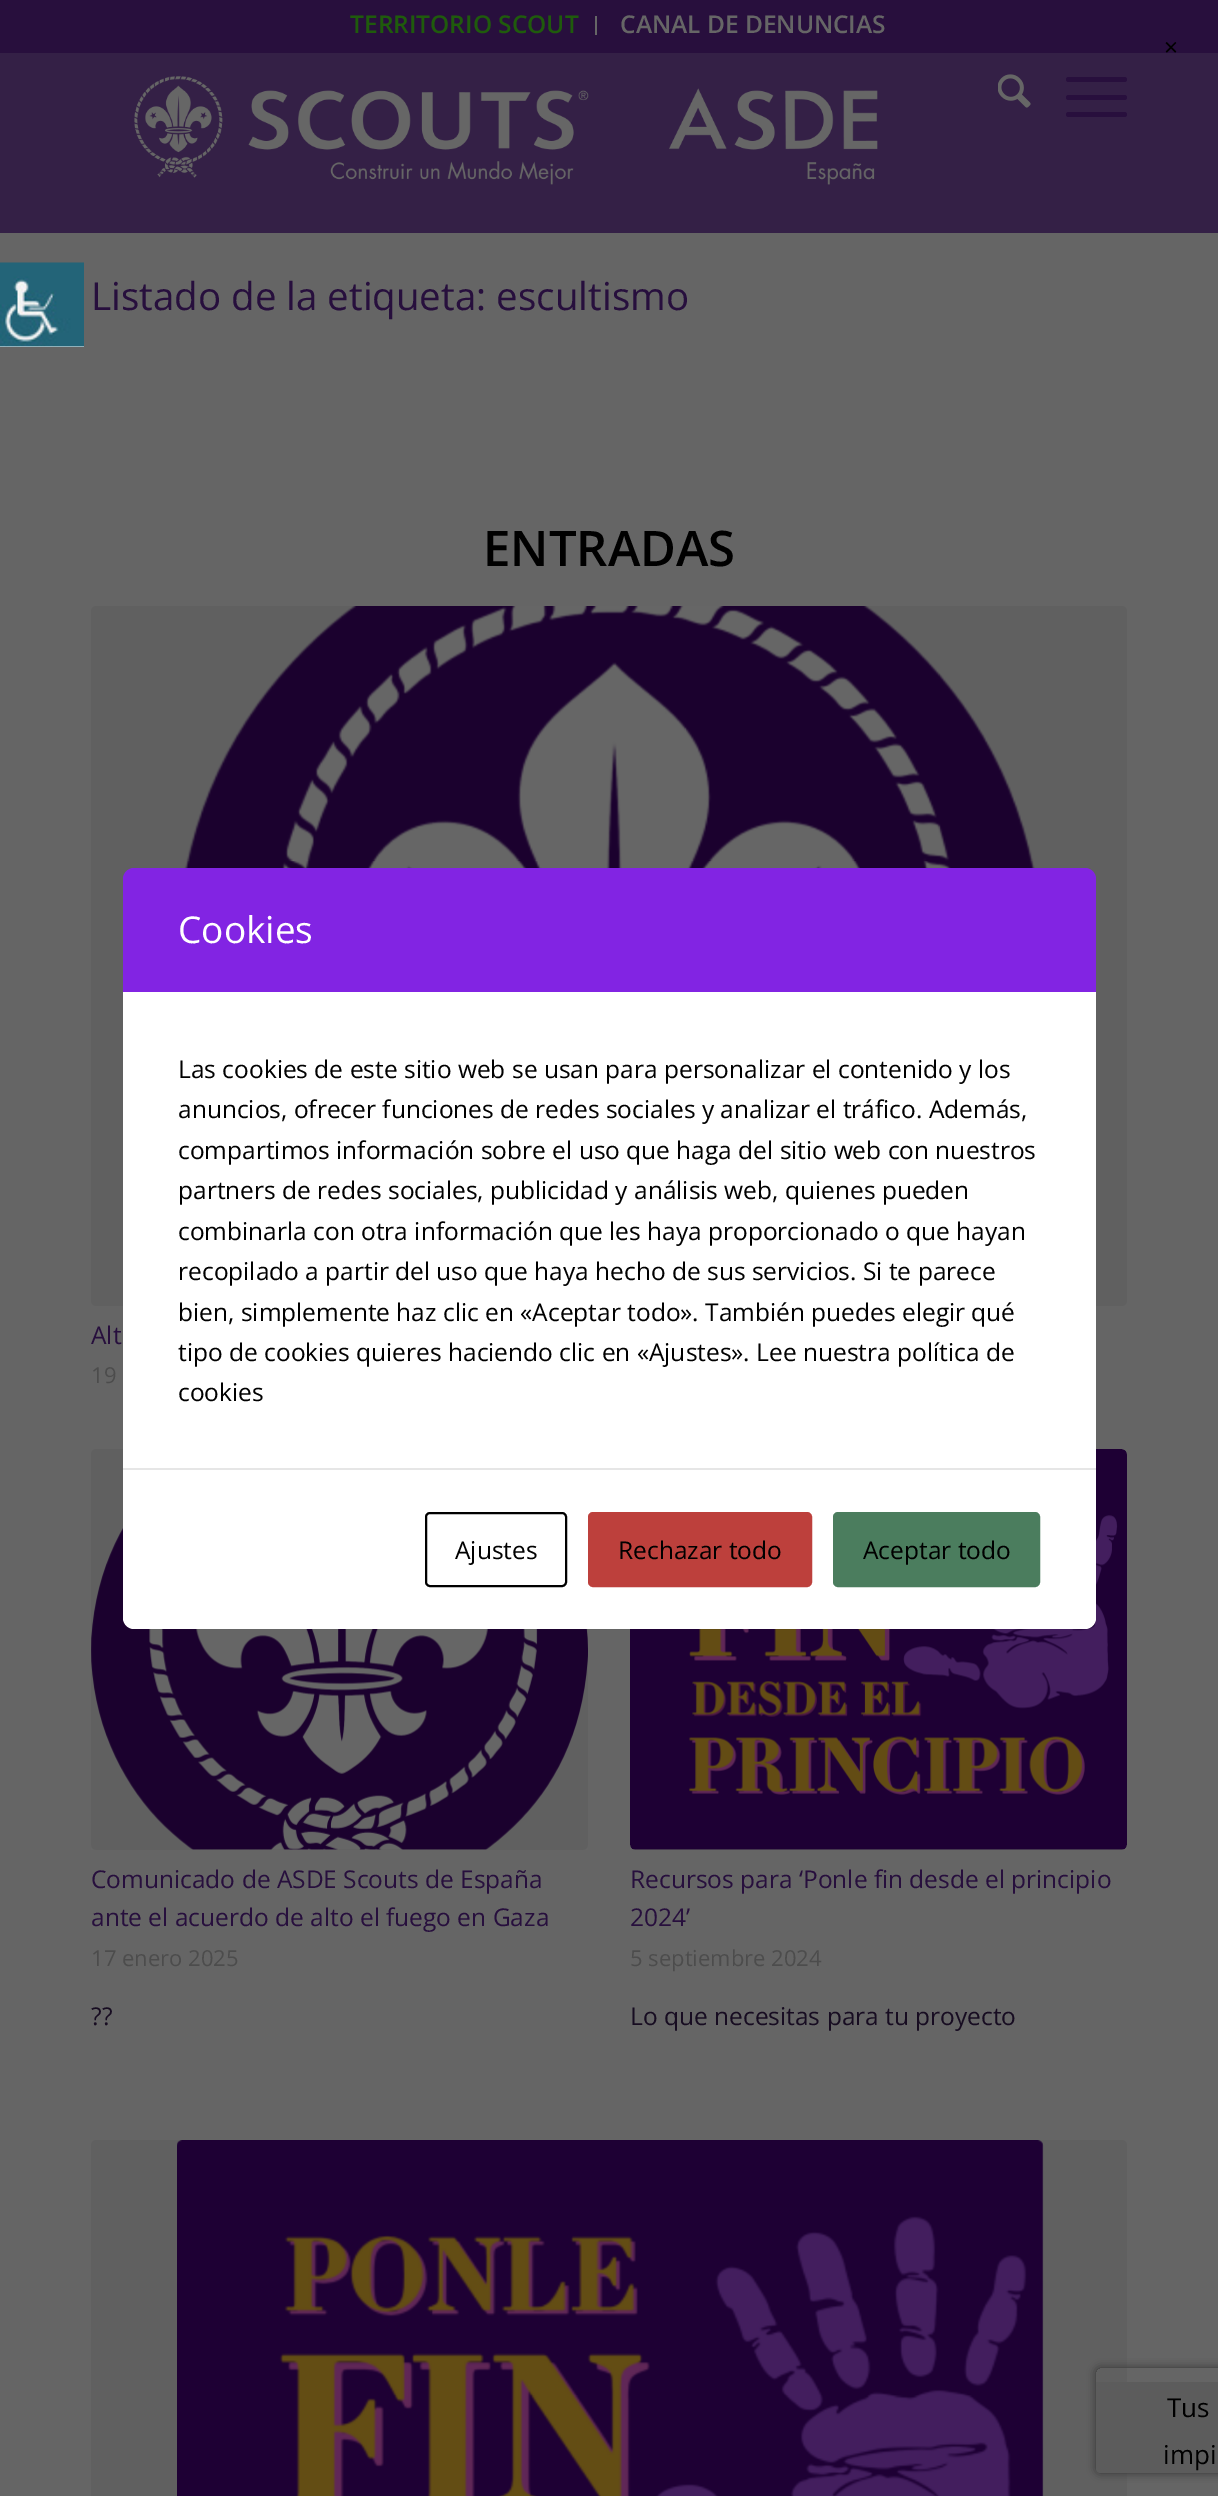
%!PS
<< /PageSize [1218 2496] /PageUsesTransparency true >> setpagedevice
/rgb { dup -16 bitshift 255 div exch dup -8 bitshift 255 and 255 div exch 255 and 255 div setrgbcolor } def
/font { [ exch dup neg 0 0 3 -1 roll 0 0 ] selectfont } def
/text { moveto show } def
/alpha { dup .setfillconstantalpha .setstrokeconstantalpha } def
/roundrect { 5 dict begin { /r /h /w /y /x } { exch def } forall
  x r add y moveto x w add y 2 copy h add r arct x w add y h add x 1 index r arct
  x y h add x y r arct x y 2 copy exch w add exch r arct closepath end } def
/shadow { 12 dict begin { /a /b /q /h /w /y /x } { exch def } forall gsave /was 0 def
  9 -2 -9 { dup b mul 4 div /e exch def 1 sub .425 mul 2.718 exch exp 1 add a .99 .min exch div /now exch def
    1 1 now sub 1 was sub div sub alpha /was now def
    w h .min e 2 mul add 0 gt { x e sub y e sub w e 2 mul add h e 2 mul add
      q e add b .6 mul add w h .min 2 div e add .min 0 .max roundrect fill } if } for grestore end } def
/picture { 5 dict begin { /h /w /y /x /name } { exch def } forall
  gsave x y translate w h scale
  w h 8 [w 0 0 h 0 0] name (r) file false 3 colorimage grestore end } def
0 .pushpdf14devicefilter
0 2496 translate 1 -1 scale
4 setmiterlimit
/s1 { /OpenSans-SemiBold 24.5 font 16#1F5B0C rgb } def
/s2 { /OpenSans-SemiBold 24.5 font 16#666666 rgb } def
/s3 { /OpenSans-Regular 38.5 font 16#270F3D rgb } def
/s4 { /OpenSans-SemiBold 49 font 16#000000 rgb } def
/s5 { /OpenSans-Regular 24.5 font 16#270F3D rgb } def
/s6 { /OpenSans-Regular 22 font 16#4C4C4C rgb } def
/s7 { /OpenSans-Regular 24.5 font 16#170C21 rgb } def
/s8 { /OpenSans-Regular 26 font 16#000000 rgb } def
/s9 { /OpenSans-Regular 24.5 font 16#000000 rgb } def
/s10 { /OpenSans-Regular 37 font 16#FFFFFF rgb } def
16#656565 rgb
0 0 1218 2496 rectfill
16#280F3D rgb
0 0 1218 53 rectfill
16#666666 rgb
595 16 2 19 rectfill
s1
(TERRITORIO SCOUT) 350 33 text
s2
(CANAL DE DENUNCIAS) 620 33 text
16#342046 rgb
0 53 1218 180 rectfill
(pic1.raw) 134 76 744 109 picture
(pic2.raw) 998 74 33 34 picture
16#280F3D rgb
1066 95 61 5 2.5 roundrect fill
1066 77 61 5 2.5 roundrect fill
1066 112 61 5 2.5 roundrect fill
s3
(Listado de la etiqueta: escultismo) 91 310 text
s4
(ENTRADAS) 483 566 text
16#606060 rgb
91 606 1036 700 5 roundrect fill
(pic3.raw) 184 606 851 262 picture
s5
(Alt) 91 1344 text
s6
(19) 91 1383 text
16#606060 rgb
91 1449 497 401 5 roundrect fill
(pic4.raw) 91 1528 497 322 picture
s5
(Comunicado de ASDE Scouts de España) 91 1888 text
(ante el acuerdo de alto el fuego en Gaza) 91 1926 text
s6
(17 enero 2025) 91 1966 text
s7
(??) 91 2025 text
16#606060 rgb
630 1449 497 401 5 roundrect fill
(pic5.raw) 630 1449 497 401 picture
s5
(Recursos para ‘Ponle fin desde el principio) 630 1888 text
(2024’) 630 1926 text
s6
(5 septiembre 2024) 630 1966 text
s7
(Lo que necesitas para tu proyecto) 630 2025 text
16#606060 rgb
91 2140 1036 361 5 roundrect fill
(pic6.raw) 177 2140 867 356 picture
gsave
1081 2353 moveto 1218 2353 lineto 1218 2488 lineto 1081 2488 lineto closepath 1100 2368 moveto 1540 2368 lineto 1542 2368 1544 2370 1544 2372 curveto 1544 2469 lineto 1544 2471 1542 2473 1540 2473 curveto 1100 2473 lineto 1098 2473 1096 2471 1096 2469 curveto 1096 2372 lineto 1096 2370 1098 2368 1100 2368 curveto closepath eoclip newpath
16#333333 rgb
1096 2368 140 105 4 4.5 1 shadow
grestore
16#5C5C5C rgb
1096 2382 moveto 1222 2382 lineto 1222 2469 lineto 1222 2471 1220 2473 1218 2473 curveto 1100 2473 lineto 1098 2473 1096 2471 1096 2469 curveto closepath fill
s8
(Tus) 1167 2417 text
(impi) 1163 2464 text
16#FFFFFF rgb
0 346 84 1 rectfill
(pic7.raw) 0 262 84 85 picture
s9
(×) 1164 56 text
16#8224E3 rgb
134 868 moveto 1085 868 lineto 1091 868 1096 873 1096 879 curveto 1096 992 lineto 123 992 lineto 123 879 lineto 123 873 128 868 134 868 curveto closepath fill
s10
(Cookies) 178 943 text
123 992 973 476 rectfill
s9
(Las cookies de este sitio web se usan para personalizar el contenido y los) 178 1078 text
(anuncios, ofrecer funciones de redes sociales y analizar el tráfico. Además,) 178 1118 text
(compartimos información sobre el uso que haga del sitio web con nuestros) 178 1159 text
(partners de redes sociales, publicidad y análisis web, quienes pueden) 178 1199 text
(combinarla con otra información que les haya proporcionado o que hayan) 178 1240 text
(recopilado a partir del uso que haya hecho de sus servicios. Si te parece) 178 1280 text
(bien, simplemente haz clic en «Aceptar todo». También puedes elegir qué) 178 1321 text
(tipo de cookies quieres haciendo clic en «Ajustes». Lee nuestra política de) 178 1361 text
(cookies) 178 1401 text
16#FFFFFF rgb
123 1468 moveto 1096 1468 lineto 1096 1618 lineto 1096 1624 1091 1629 1085 1629 curveto 134 1629 lineto 128 1629 123 1624 123 1618 curveto closepath fill
16#E6E6E6 rgb
123 1468 973 2 rectfill
16#000000 rgb
2 setlinewidth
426 1513 140 73 4 roundrect stroke
(Ajustes) 455 1559 text
16#BD403C rgb
589 1513 222 73 4 roundrect gsave fill grestore
stroke
s9
(Rechazar todo) 618 1559 text
16#4B7D5E rgb
834 1513 205 73 4 roundrect gsave fill grestore
stroke
s9
(Aceptar todo) 863 1559 text
.poppdf14devicefilter showpage
